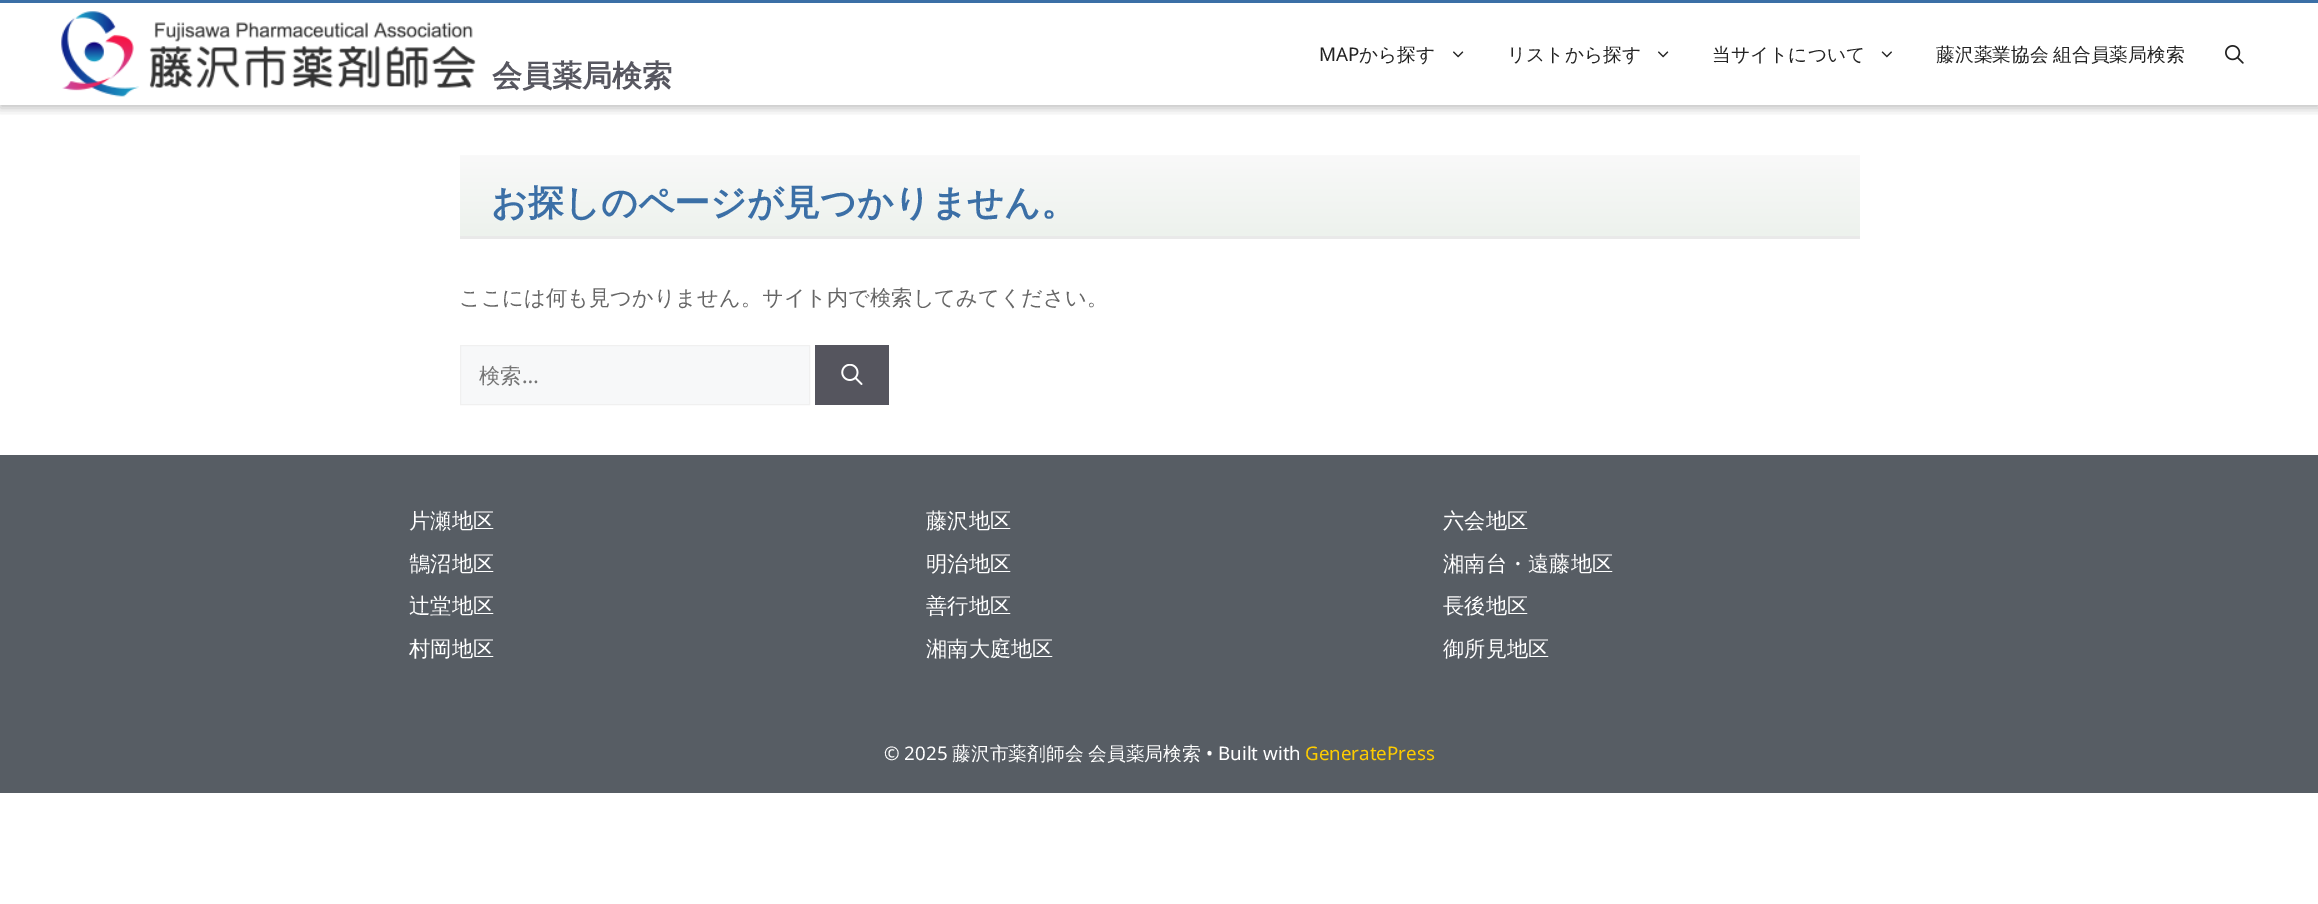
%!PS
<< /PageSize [2318 904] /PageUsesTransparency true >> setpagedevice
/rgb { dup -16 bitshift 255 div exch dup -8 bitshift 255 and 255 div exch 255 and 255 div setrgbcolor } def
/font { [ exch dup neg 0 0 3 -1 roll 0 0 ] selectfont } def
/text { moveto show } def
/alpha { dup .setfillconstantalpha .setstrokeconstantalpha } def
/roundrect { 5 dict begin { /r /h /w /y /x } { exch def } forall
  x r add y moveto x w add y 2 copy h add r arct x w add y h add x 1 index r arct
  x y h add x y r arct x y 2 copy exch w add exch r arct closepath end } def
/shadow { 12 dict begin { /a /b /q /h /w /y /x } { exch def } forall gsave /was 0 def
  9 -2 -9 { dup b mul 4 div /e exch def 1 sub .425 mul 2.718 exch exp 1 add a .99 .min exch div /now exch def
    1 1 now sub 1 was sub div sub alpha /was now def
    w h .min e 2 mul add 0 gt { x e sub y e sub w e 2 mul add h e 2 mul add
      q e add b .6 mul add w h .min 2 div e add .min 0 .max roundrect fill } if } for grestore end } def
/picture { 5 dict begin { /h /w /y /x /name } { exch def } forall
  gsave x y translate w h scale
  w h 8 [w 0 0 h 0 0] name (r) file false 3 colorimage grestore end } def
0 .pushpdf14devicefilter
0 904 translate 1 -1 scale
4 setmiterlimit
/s1 { /NotoSans-Regular 18.75 font 16#222222 rgb } def
/s2 { /WenQuanYiZenHei-Medium 18.75 font 16#222222 rgb } def
/s3 { /WenQuanYiZenHei-Bold 30 font 16#575760 rgb } def
/s4 { /WenQuanYiZenHei-Bold 36 font 16#3B6FA6 rgb } def
/s5 { /WenQuanYiZenHei-Medium 21.25 font 16#666666 rgb } def
/s6 { /WenQuanYiZenHei-Medium 21.25 font 16#757575 rgb } def
/s7 { /NotoSans-Regular 21.25 font 16#757575 rgb } def
/s8 { /WenQuanYiZenHei-Medium 21.25 font 16#FFFFFF rgb } def
/s9 { /NotoSans-Regular 18.75 font 16#FFFFFF rgb } def
/s10 { /WenQuanYiZenHei-Medium 18.75 font 16#FFFFFF rgb } def
/s11 { /NotoSans-Regular 18.75 font 16#FECC00 rgb } def
16#FFFFFF rgb
0 0 2318 904 rectfill
gsave
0 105 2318 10 rectclip
16#000000 rgb
0 3 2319 105 0 5 0.25 shadow
grestore
16#3B6FA6 rgb
0 0 2318 3 rectfill
s1
(MAP) 1319 61 text
s2
(から探す) 1359 61 text
(pic1.raw) 1453 51 11 7 picture
(リストから探す) 1507 61 text
(pic1.raw) 1658 51 11 7 picture
(当サイトについて) 1712 61 text
(pic2.raw) 1881 51 11 7 picture
1936 61 moveto -1 0 32 (藤沢薬業協会 組合員薬局検索) widthshow
(pic3.raw) 2225 45 19 19 picture
(pic4.raw) 61 11 415 86 picture
s3
(会員薬局検索) 492 86 text
gsave 460 155 moveto 1860 155 lineto 1860 236 lineto 460 236 lineto closepath clip newpath
<< /ShadingType 2 /ColorSpace /DeviceRGB /Coords [1160 236 1160 155] /Extend [true true] /Function << /FunctionType 2 /Domain [0 1] /C0 [0.929 0.949 0.929] /C1 [0.976 0.976 0.976] /N 1 >> >> shfill grestore
16#E9E9E9 rgb
460 236 1400 3 rectfill
s4
(お探しのページが見つかりません。) 491 215 text
s5
(ここには何も見つかりません。サイト内で検索してみてください。) 459 305 text
16#F7F8F9 rgb
460.5 345.5 moveto 809.5 345.5 lineto 809.5 404.5 lineto 460.5 404.5 lineto closepath gsave fill grestore
16#F0F0F0 rgb
stroke
s6
(検索) 479 383 text
s7
(…) 522 383 text
16#55555E rgb
815 345 74 60 rectfill
(pic5.raw) 841 364 22 21 picture
16#575D64 rgb
0 455 2318 338 rectfill
s8
(片瀬地区) 409 528 text
(鵠沼地区) 409 571 text
(辻堂地区) 409 613 text
(村岡地区) 409 656 text
(藤沢地区) 926 528 text
(明治地区) 926 571 text
(善行地区) 926 613 text
(湘南大庭地区) 926 656 text
(六会地区) 1443 528 text
(湘南台・遠藤地区) 1443 571 text
(長後地区) 1443 613 text
(御所見地区) 1443 656 text
s9
(© 2025) 884 760 text
s10
(藤沢市薬剤師会) 952 760 text
(会員薬局検索) 1088 760 text
s9
(• Built with) 1206 760 text
s11
(GeneratePress) 1305 760 text
.poppdf14devicefilter showpage
